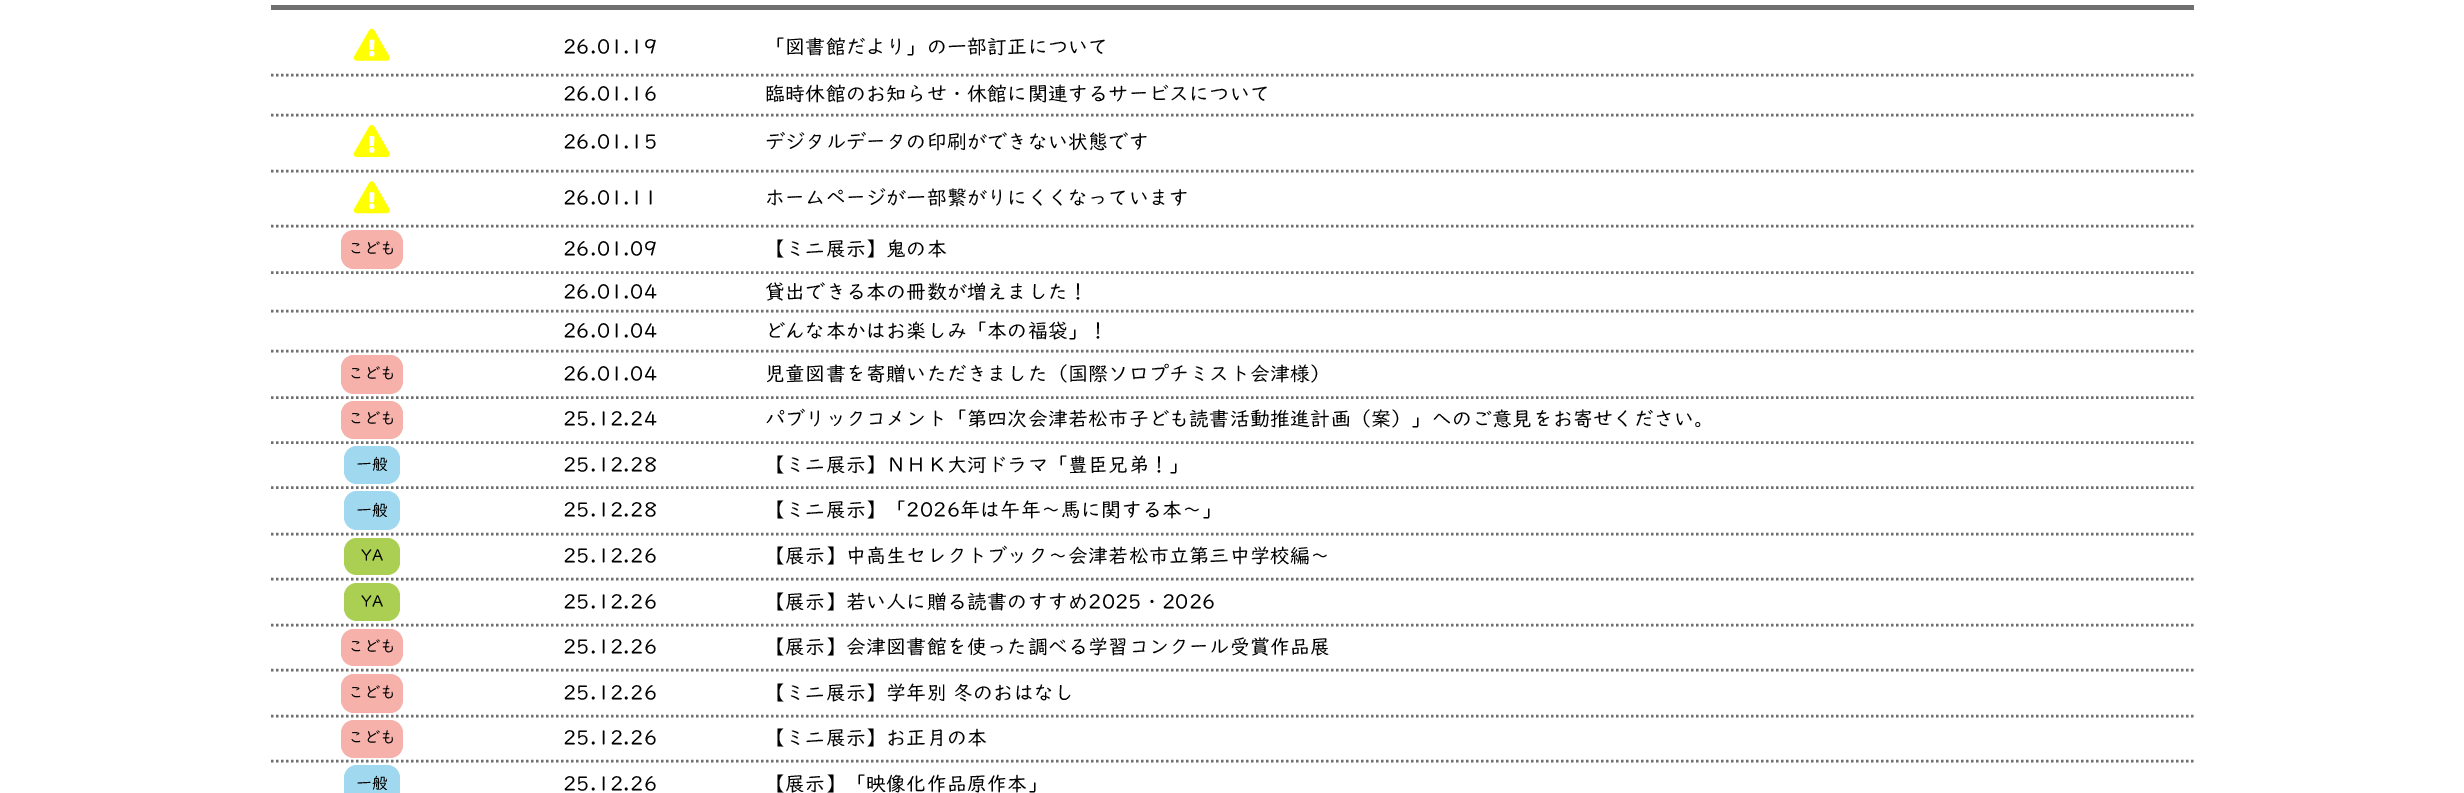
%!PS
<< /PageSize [2464 793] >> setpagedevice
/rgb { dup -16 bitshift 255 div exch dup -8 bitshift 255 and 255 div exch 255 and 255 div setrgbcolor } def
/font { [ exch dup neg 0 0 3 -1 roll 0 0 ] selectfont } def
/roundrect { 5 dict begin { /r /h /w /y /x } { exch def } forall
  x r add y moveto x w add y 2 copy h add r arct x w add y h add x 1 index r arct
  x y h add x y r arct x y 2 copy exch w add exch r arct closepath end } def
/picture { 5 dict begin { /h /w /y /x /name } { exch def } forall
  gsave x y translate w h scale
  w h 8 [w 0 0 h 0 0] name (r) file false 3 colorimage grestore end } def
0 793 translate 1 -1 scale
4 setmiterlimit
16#FFFFFF rgb
0 0 2464 793 rectfill
16#707070 rgb
271 5 1923 5 rectfill
2.5 setlinewidth
[2.5 2.5] 0 setdash
271 75 moveto 2194 75 lineto stroke
(pic1.raw) 353 28 37 33 picture
/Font-Regular 20 font
16#000000 rgb
563 54 moveto 0.2 0 (26.01.19) ashow
765 54 moveto 0.2 0 (「図書館だより」の一部訂正について) ashow
16#707070 rgb
271 115 moveto 2194 115 lineto stroke
16#000000 rgb
563 101 moveto 0.2 0 (26.01.16) ashow
765 101 moveto 0.2 0 (臨時休館のお知らせ・休館に関連するサービスについて) ashow
16#707070 rgb
271 171 moveto 2194 171 lineto stroke
(pic2.raw) 353 125 37 32 picture
16#000000 rgb
563 149 moveto 0.2 0 (26.01.15) ashow
765 149 moveto 0.2 0 (デジタルデータの印刷ができない状態です) ashow
16#707070 rgb
271 226 moveto 2194 226 lineto stroke
(pic3.raw) 353 181 37 33 picture
16#000000 rgb
563 205 moveto 0.2 0 (26.01.11) ashow
765 205 moveto 0.2 0 (ホームページが一部繋がりにくくなっています) ashow
16#707070 rgb
271 272.5 moveto 2194 272.5 lineto stroke
16#F5B1AA rgb
341 230 62 39 13 roundrect fill
/Font-Regular 16 font
16#000000 rgb
348 254 moveto 0.2 0 (こども) ashow
/Font-Regular 20 font
563 256 moveto 0.2 0 (26.01.09) ashow
765 256 moveto 0.2 0 (【ミニ展示】鬼の本) ashow
16#707070 rgb
271 311 moveto 2194 311 lineto stroke
16#000000 rgb
563 299 moveto 0.2 0 (26.01.04) ashow
765 299 moveto 0.2 0 (貸出できる本の冊数が増えました！) ashow
16#707070 rgb
271 351 moveto 2194 351 lineto stroke
16#000000 rgb
563 338 moveto 0.2 0 (26.01.04) ashow
765 338 moveto 0.2 0 (どんな本かはお楽しみ「本の福袋」！) ashow
16#707070 rgb
271 397.5 moveto 2194 397.5 lineto stroke
16#F5B1AA rgb
341 355 62 39 13 roundrect fill
/Font-Regular 16 font
16#000000 rgb
348 379 moveto 0.2 0 (こども) ashow
/Font-Regular 20 font
563 381 moveto 0.2 0 (26.01.04) ashow
765 381 moveto 0.2 0 (児童図書を寄贈いただきました（国際ソロプチミスト会津様）) ashow
16#707070 rgb
271 442.5 moveto 2194 442.5 lineto stroke
16#F5B1AA rgb
341 401 62 38 13 roundrect fill
/Font-Regular 16 font
16#000000 rgb
348 424 moveto 0.2 0 (こども) ashow
/Font-Regular 20 font
563 426 moveto 0.2 0 (25.12.24) ashow
765 426 moveto 0.2 0 (パブリックコメント「第四次会津若松市子ども読書活動推進計画（案）」へのご意見をお寄せください。) ashow
16#707070 rgb
271 487.5 moveto 2194 487.5 lineto stroke
16#A0D8EF rgb
344 446 56 38 13 roundrect fill
/Font-Regular 16 font
16#000000 rgb
356 470 moveto 0.2 0 (一般) ashow
/Font-Regular 20 font
563 472 moveto 0.2 0 (25.12.28) ashow
765 472 moveto 0.2 0 (【ミニ展示】ＮＨＫ大河ドラマ「豊臣兄弟！」) ashow
16#707070 rgb
271 534 moveto 2194 534 lineto stroke
16#A0D8EF rgb
344 491 56 39 13 roundrect fill
/Font-Regular 16 font
16#000000 rgb
356 516 moveto 0.2 0 (一般) ashow
/Font-Regular 20 font
563 517 moveto 0.2 0 (25.12.28) ashow
765 517 moveto 0.2 0 (【ミニ展示】「2026年は午年～馬に関する本～」) ashow
16#707070 rgb
271 579 moveto 2194 579 lineto stroke
16#AACF53 rgb
344 538 56 37 13 roundrect fill
/Font-Regular 16 font
16#000000 rgb
361 561 moveto 0.2 0 (YA) ashow
/Font-Regular 20 font
563 563 moveto 0.2 0 (25.12.26) ashow
765 563 moveto 0.2 0 (【展示】中高生セレクトブック～会津若松市立第三中学校編～) ashow
16#707070 rgb
271 625 moveto 2194 625 lineto stroke
16#AACF53 rgb
344 583 56 38 13 roundrect fill
/Font-Regular 16 font
16#000000 rgb
361 607 moveto 0.2 0 (YA) ashow
/Font-Regular 20 font
563 609 moveto 0.2 0 (25.12.26) ashow
765 609 moveto 0.2 0 (【展示】若い人に贈る読書のすすめ2025・2026) ashow
16#707070 rgb
271 670 moveto 2194 670 lineto stroke
16#F5B1AA rgb
341 629 62 37 13 roundrect fill
/Font-Regular 16 font
16#000000 rgb
348 652 moveto 0.2 0 (こども) ashow
/Font-Regular 20 font
563 654 moveto 0.2 0 (25.12.26) ashow
765 654 moveto 0.2 0 (【展示】会津図書館を使った調べる学習コンクール受賞作品展) ashow
16#707070 rgb
271 716 moveto 2194 716 lineto stroke
16#F5B1AA rgb
341 674 62 39 13 roundrect fill
/Font-Regular 16 font
16#000000 rgb
348 698 moveto 0.2 0 (こども) ashow
/Font-Regular 20 font
563 700 moveto 0.2 0 (25.12.26) ashow
765 700 moveto 0.2 0 (【ミニ展示】学年別 冬のおはなし) ashow
16#707070 rgb
271 761 moveto 2194 761 lineto stroke
16#F5B1AA rgb
341 720 62 38 13 roundrect fill
/Font-Regular 16 font
16#000000 rgb
348 743 moveto 0.2 0 (こども) ashow
/Font-Regular 20 font
563 745 moveto 0.2 0 (25.12.26) ashow
765 745 moveto 0.2 0 (【ミニ展示】お正月の本) ashow
16#A0D8EF rgb
344 765 56 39 13 roundrect fill
/Font-Regular 16 font
16#000000 rgb
356 789 moveto 0.2 0 (一般) ashow
/Font-Regular 20 font
563 791 moveto 0.2 0 (25.12.26) ashow
765 791 moveto 0.2 0 (【展示】「映像化作品原作本」) ashow
showpage
